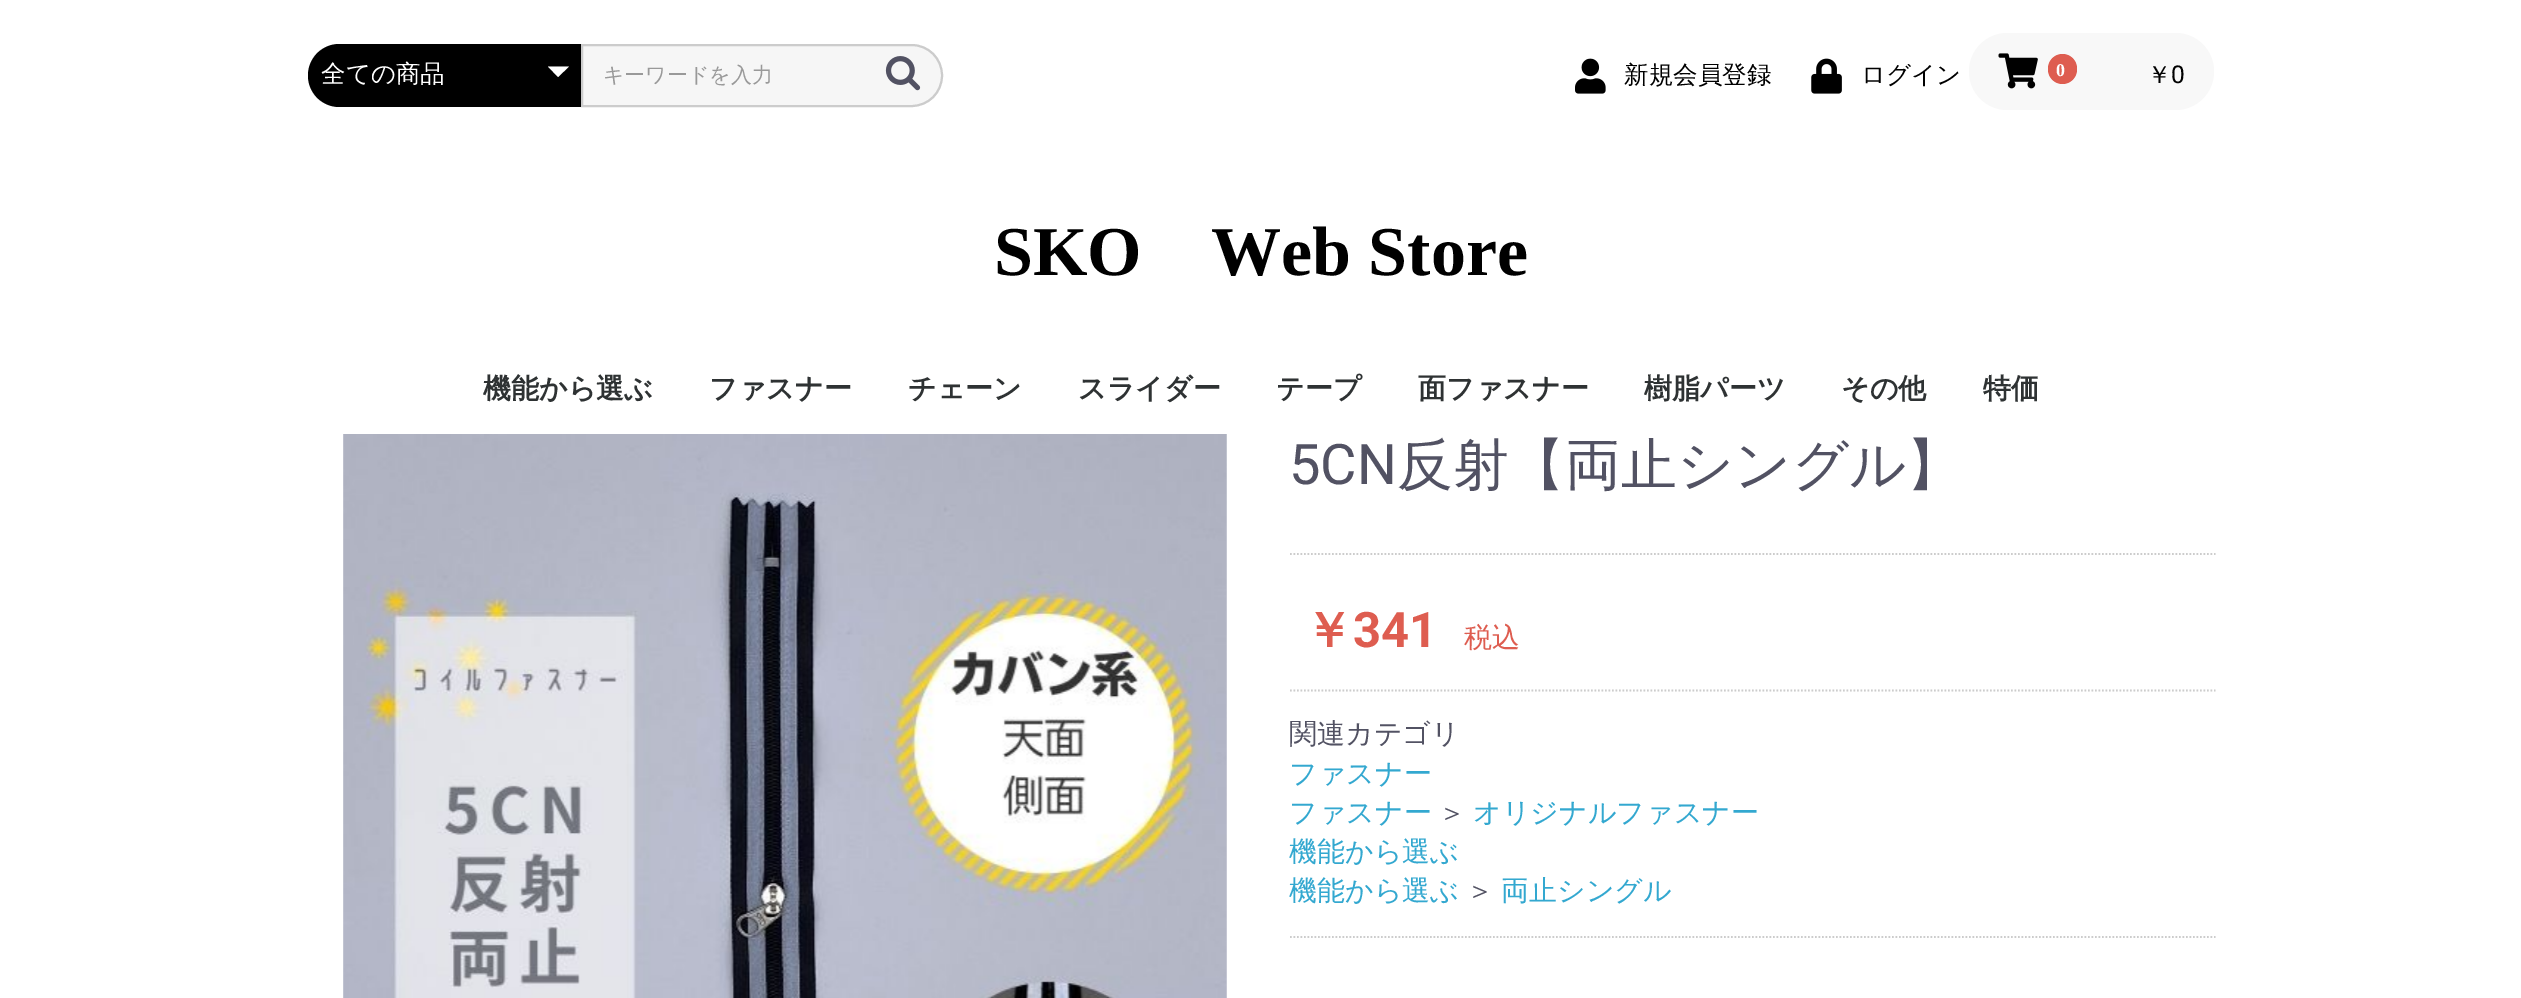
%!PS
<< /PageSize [2521 998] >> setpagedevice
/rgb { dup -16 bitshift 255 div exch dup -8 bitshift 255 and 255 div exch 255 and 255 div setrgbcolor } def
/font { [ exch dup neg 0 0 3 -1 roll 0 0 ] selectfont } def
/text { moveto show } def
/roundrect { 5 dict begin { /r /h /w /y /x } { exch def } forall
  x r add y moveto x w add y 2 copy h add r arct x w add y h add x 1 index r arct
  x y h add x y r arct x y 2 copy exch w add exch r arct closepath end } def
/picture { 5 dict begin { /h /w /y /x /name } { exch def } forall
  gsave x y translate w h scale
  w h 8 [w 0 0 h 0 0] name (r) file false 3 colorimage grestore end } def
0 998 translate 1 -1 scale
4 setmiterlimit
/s1 { /WenQuanYiZenHei-Medium 24.5 font 16#FFFFFF rgb } def
/s2 { /WenQuanYiZenHei-Medium 21 font 16#999999 rgb } def
/s3 { /WenQuanYiZenHei-Medium 24.5 font 16#000000 rgb } def
/s4 { /LiberationSerif-Bold 18 font 16#FFFFFF rgb } def
/s5 { /Roboto-Regular 24.5 font 16#000000 rgb } def
/s6 { /LiberationSerif-Bold 70 font 16#000000 rgb } def
/s7 { /WenQuanYiZenHei-Bold 28 font 16#2E3233 rgb } def
/s8 { /Roboto-Regular 56 font 16#525263 rgb } def
/s9 { /WenQuanYiZenHei-Medium 56 font 16#525263 rgb } def
/s10 { /WenQuanYiZenHei-Bold 49 font 16#DE5D50 rgb } def
/s11 { /Roboto-Bold 49 font 16#DE5D50 rgb } def
/s12 { /WenQuanYiZenHei-Medium 28 font 16#DE5D50 rgb } def
/s13 { /WenQuanYiZenHei-Medium 28 font 16#525263 rgb } def
/s14 { /WenQuanYiZenHei-Medium 28 font 16#33A8D0 rgb } def
16#FFFFFF rgb
0 0 2521 998 rectfill
16#000000 rgb
339.5 44 moveto 581 44 lineto 581 107 lineto 339.5 107 lineto 322 107 308 93 308 75.5 curveto 308 58 322 44 339.5 44 curveto closepath fill
s1
(全ての商品) 321 82 text
548 66.5 moveto 569 66.5 lineto 558 77 lineto closepath fill
16#F6F6F6 rgb
582 45 moveto 911.5 45 lineto 928.5 45 942 58.5 942 75.5 curveto 942 92.5 928.5 106 911.5 106 curveto 582 106 lineto closepath gsave fill grestore
16#CCCCCC rgb
2 setlinewidth
stroke
s2
(キーワードを入力) 603 82 text
(pic1.raw) 885 56 36 35 picture
(pic2.raw) 1575 58 31 36 picture
s3
(新規会員登録) 1624 83 text
(pic3.raw) 1811 58 31 36 picture
(ログイン) 1861 83 text
16#F8F8F8 rgb
1969 33 245 77 38.5 roundrect fill
(pic4.raw) 1998 53 40 36 picture
16#DE5D50 rgb
2048 54 29 30 14.5 roundrect fill
s4
(0) 2056 76 text
s3
(￥) 2147 83 text
s5
(0) 2171 83 text
s6
(SKO) 994 275 text
(Web Store) 1211 275 text
s7
(機能から選ぶ) 483 398 text
(ファスナー) 709 398 text
(チェーン) 908 398 text
(スライダー) 1078 398 text
(テープ) 1276 398 text
(面ファスナー) 1418 398 text
(樹脂パーツ) 1644 398 text
(その他) 1841 398 text
(特価) 1983 398 text
(pic5.raw) 343 434 884 564 picture
(pic6.raw) 1226 434 1 564 picture
s8
(5CN) 1289 484 text
s9
(反射【両止シングル】) 1397 484 text
16#CCCCCC rgb
1.8 setlinewidth
[1.75 1.75] 0 setdash
1290 554 moveto 2215.5 554 lineto stroke
1290 690.5 moveto 2215.5 690.5 lineto stroke
s10
(￥) 1304 647 text
s11
(341) 1353 647 text
s12
(税込) 1464 647 text
16#CCCCCC rgb
1290 937 moveto 2215.5 937 lineto stroke
s13
(関連カテゴリ) 1289 743 text
s14
(ファスナー) 1289 783 text
(ファスナー) 1289 822 text
s13
(＞) 1438 822 text
s14
(オリジナルファスナー) 1473 822 text
(機能から選ぶ) 1289 861 text
(機能から選ぶ) 1289 900 text
s13
(＞) 1466 900 text
s14
(両止シングル) 1501 900 text
showpage
